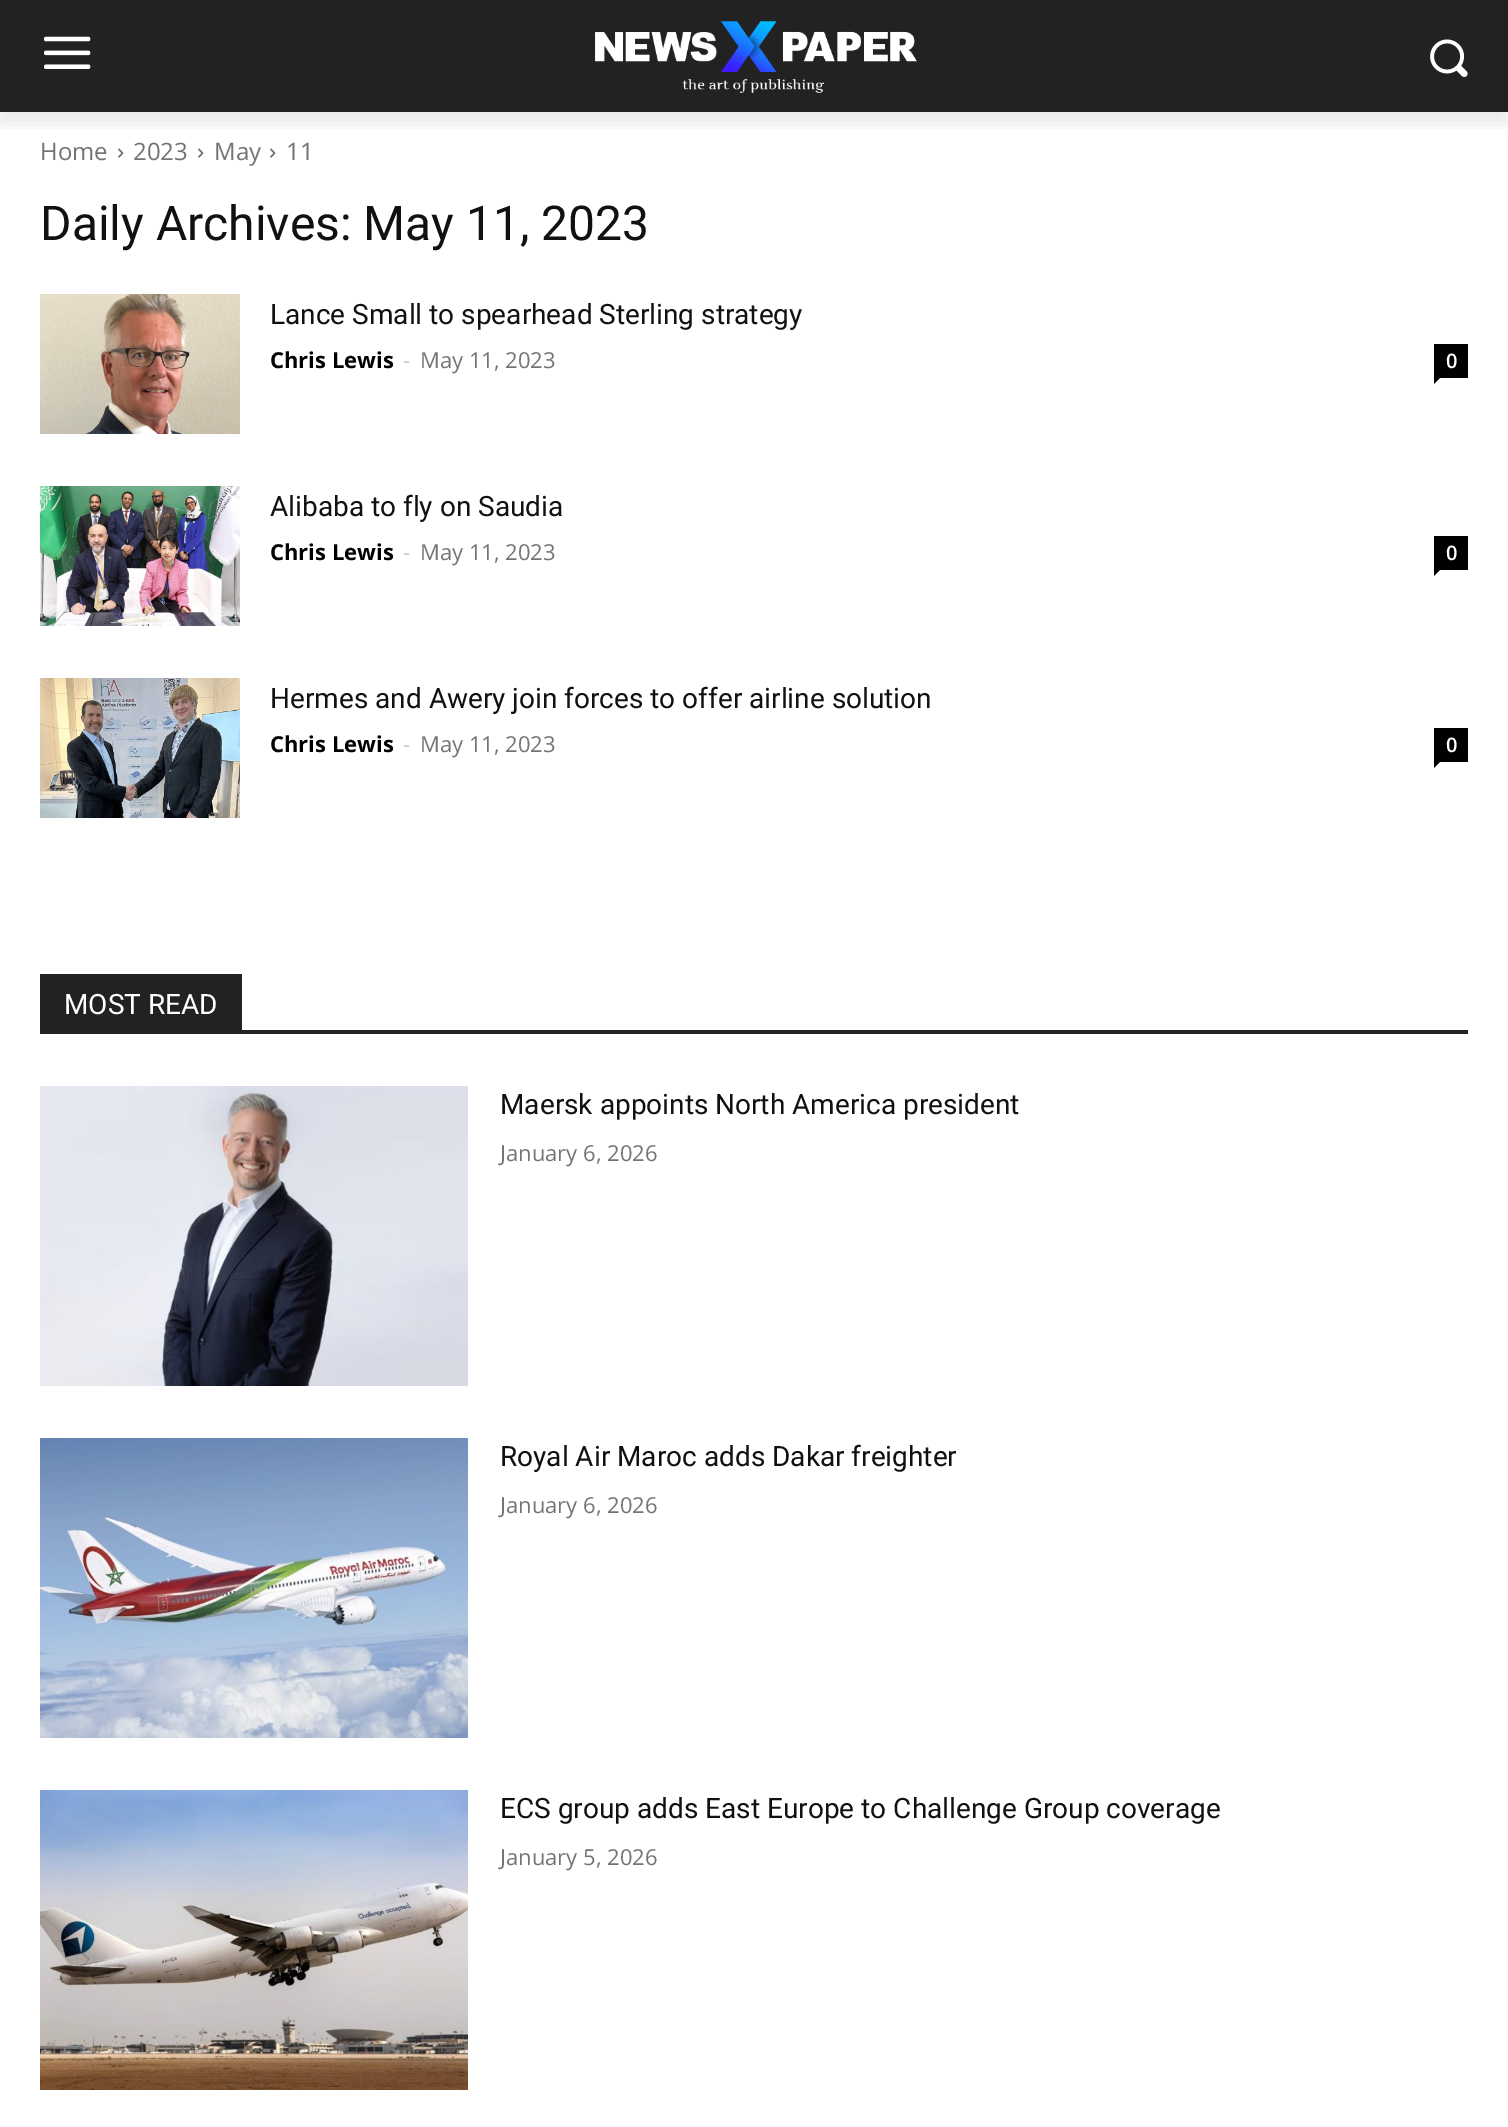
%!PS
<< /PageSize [1508 2127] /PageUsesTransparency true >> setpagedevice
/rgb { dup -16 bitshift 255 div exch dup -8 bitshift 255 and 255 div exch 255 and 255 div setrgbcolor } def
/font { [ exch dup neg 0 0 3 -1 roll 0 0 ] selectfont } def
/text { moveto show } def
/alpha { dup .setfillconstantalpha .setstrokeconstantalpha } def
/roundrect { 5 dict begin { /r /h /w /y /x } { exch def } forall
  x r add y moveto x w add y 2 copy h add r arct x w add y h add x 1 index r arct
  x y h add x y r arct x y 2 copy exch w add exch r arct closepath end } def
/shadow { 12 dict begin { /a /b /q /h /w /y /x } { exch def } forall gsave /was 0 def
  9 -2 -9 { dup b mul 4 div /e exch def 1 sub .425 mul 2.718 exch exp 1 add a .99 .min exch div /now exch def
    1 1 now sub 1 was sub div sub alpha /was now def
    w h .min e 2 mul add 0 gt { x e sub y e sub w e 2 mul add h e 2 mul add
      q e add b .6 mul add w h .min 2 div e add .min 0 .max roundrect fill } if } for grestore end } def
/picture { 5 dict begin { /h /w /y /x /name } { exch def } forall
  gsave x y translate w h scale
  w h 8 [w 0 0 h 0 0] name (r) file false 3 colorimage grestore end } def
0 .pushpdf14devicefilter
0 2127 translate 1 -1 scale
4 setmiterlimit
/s1 { /OpenSans-Regular 24 font 16#747474 rgb } def
/s2 { /Roboto-Regular 48 font 16#111111 rgb } def
/s3 { /Roboto-Regular 28 font 16#111111 rgb } def
/s4 { /OpenSans-Bold 22 font 16#000000 rgb } def
/s5 { /OpenSans-Regular 22 font 16#CCCCCC rgb } def
/s6 { /OpenSans-Regular 22 font 16#747474 rgb } def
/s7 { /OpenSans-SemiBold 20 font 16#FFFFFF rgb } def
/s8 { /Roboto-Regular 28 font 16#FFFFFF rgb } def
16#FFFFFF rgb
0 0 1508 2127 rectfill
16#222222 rgb
0 0 1508 112 rectfill
(pic1.raw) 44 36 47 33 picture
(pic2.raw) 595 21 322 72 picture
(pic3.raw) 1430 39 38 38 picture
(pic4.raw) 118 148 6 10 picture
(pic4.raw) 198 148 6 10 picture
(pic4.raw) 270 148 6 10 picture
gsave
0 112 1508 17 rectclip
16#000000 rgb
0 12 1508 112 0 8 0.08 shadow
grestore
s1
(Home) 40 160 text
(2023) 133 160 text
(May) 214 160 text
(11) 286 160 text
s2
(Daily Archives: May 11, 2023) 40 240 text
(pic5.raw) 40 294 200 140 picture
s3
(Lance Small to spearhead Sterling strategy) 270 324 text
s4
(Chris Lewis) 270 368 text
s5
(-) 403 368 text
s6
(May 11, 2023) 420 368 text
16#000000 rgb
1434 344 34 34 rectfill
s7
(0) 1446 368 text
16#000000 rgb
1434 378 moveto 1440 378 lineto 1434 384 lineto closepath fill
(pic6.raw) 40 486 200 140 picture
s3
(Alibaba to fly on Saudia) 270 516 text
s4
(Chris Lewis) 270 560 text
s5
(-) 403 560 text
s6
(May 11, 2023) 420 560 text
16#000000 rgb
1434 536 34 34 rectfill
s7
(0) 1446 560 text
16#000000 rgb
1434 570 moveto 1440 570 lineto 1434 576 lineto closepath fill
(pic7.raw) 40 678 200 140 picture
s3
(Hermes and Awery join forces to offer airline solution) 270 708 text
s4
(Chris Lewis) 270 752 text
s5
(-) 403 752 text
s6
(May 11, 2023) 420 752 text
16#000000 rgb
1434 728 34 34 rectfill
s7
(0) 1446 752 text
16#000000 rgb
1434 762 moveto 1440 762 lineto 1434 768 lineto closepath fill
16#222222 rgb
40 1030 1428 4 rectfill
40 974 202 56 rectfill
s8
(MOST READ) 64 1014 text
(pic8.raw) 40 1086 428 300 picture
s3
(Maersk appoints North America president) 500 1114 text
s6
(January 6, 2026) 500 1161 text
(pic9.raw) 40 1438 428 300 picture
s3
(Royal Air Maroc adds Dakar freighter) 500 1466 text
s6
(January 6, 2026) 500 1513 text
(pic10.raw) 40 1790 428 300 picture
s3
(ECS group adds East Europe to Challenge Group coverage) 500 1818 text
s6
(January 5, 2026) 500 1865 text
.poppdf14devicefilter showpage
